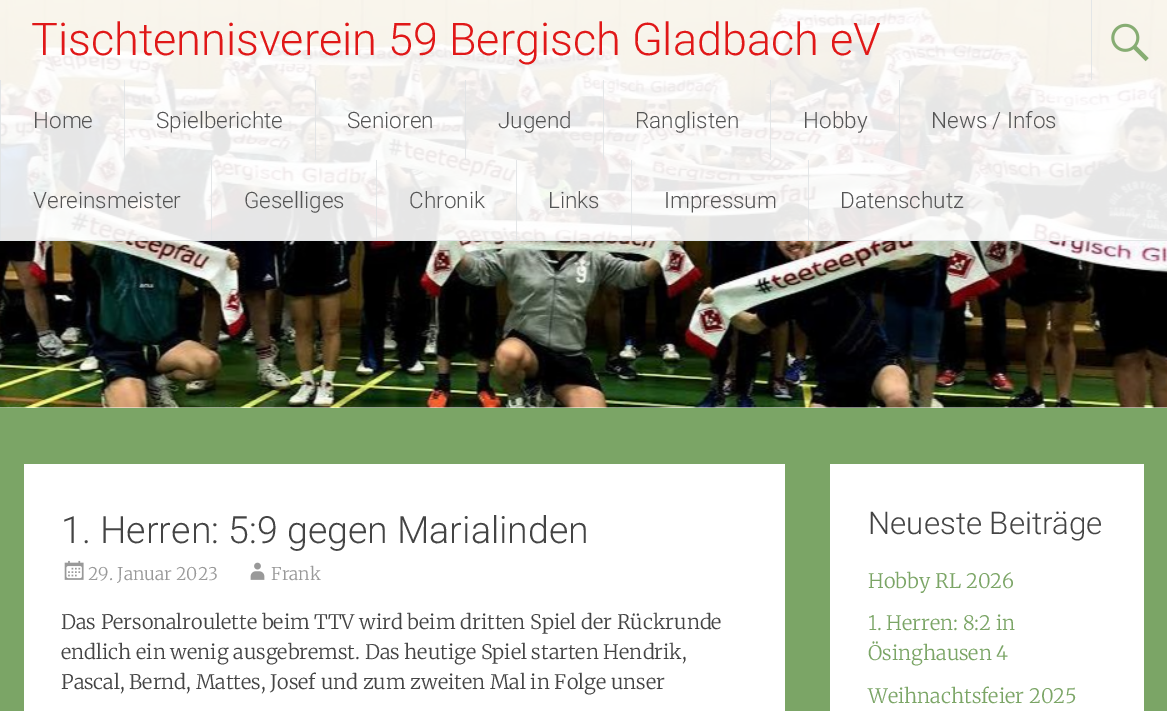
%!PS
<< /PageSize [1167 711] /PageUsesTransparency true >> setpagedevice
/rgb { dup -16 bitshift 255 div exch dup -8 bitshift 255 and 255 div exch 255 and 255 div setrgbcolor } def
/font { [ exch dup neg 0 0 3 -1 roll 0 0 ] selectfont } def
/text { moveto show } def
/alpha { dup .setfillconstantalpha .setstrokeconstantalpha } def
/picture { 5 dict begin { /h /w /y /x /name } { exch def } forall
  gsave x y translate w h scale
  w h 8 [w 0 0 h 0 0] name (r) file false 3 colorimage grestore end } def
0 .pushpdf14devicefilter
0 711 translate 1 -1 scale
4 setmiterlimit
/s1 { /Roboto-Light 45 font 16#E01818 rgb } def
/s2 { /Roboto-Light 22.5 font 16#555555 rgb } def
/s3 { /Roboto-Light 37.5 font 16#444444 rgb } def
/s4 { /Merriweather-Light 17.5 font 16#999999 rgb } def
/s5 { /Merriweather-Light 20 font 16#444444 rgb } def
/s6 { /Roboto-Light 31.25 font 16#444444 rgb } def
/s7 { /Merriweather-Light 20 font 16#7BA566 rgb } def
16#FFFFFF rgb
0 0 1167 711 rectfill
(pic1.raw) 0 0 1167 408 picture
0.9 alpha
0 0 1167 241 rectfill
16#E1E4E6 rgb
0 240 1167 1 rectfill
1 alpha
s1
(Tischtennisverein 59 Bergisch Gladbach eV) 31 55 text
0.9 alpha
16#E1E4E6 rgb
1091 0 1 80 rectfill
1 alpha
(pic2.raw) 1111 23 38 39 picture
0.9 alpha
0 80 1 80 rectfill
1 alpha
s2
(Home) 33 128 text
0.9 alpha
16#E1E4E6 rgb
124 80 1 80 rectfill
1 alpha
s2
(Spielberichte) 156 128 text
0.9 alpha
16#E1E4E6 rgb
315 80 1 80 rectfill
1 alpha
s2
(Senioren) 347 128 text
0.9 alpha
16#E1E4E6 rgb
465 80 1 80 rectfill
1 alpha
s2
(Jugend) 498 128 text
0.9 alpha
16#E1E4E6 rgb
603 80 1 80 rectfill
1 alpha
s2
(Ranglisten) 635 128 text
0.9 alpha
16#E1E4E6 rgb
770 80 1 80 rectfill
1 alpha
s2
(Hobby) 803 128 text
0.9 alpha
16#E1E4E6 rgb
899 80 1 80 rectfill
1 alpha
s2
(News / Infos) 931 128 text
0.9 alpha
16#E1E4E6 rgb
0 160 1 80 rectfill
1 alpha
s2
(Vereinsmeister) 33 208 text
0.9 alpha
16#E1E4E6 rgb
211 160 1 80 rectfill
1 alpha
s2
(Geselliges) 244 208 text
0.9 alpha
16#E1E4E6 rgb
376 160 1 80 rectfill
1 alpha
s2
(Chronik) 409 208 text
0.9 alpha
16#E1E4E6 rgb
516 160 1 80 rectfill
1 alpha
s2
(Links) 548 208 text
0.9 alpha
16#E1E4E6 rgb
631 160 1 80 rectfill
1 alpha
s2
(Impressum) 664 208 text
0.9 alpha
16#E1E4E6 rgb
808 160 1 80 rectfill
1 alpha
s2
(Datenschutz) 840 208 text
16#7BA566 rgb
0 408 1167 303 rectfill
16#FFFFFF rgb
24 464 761 247 rectfill
s3
(1. Herren: 5:9 gegen Marialinden) 61 543 text
(pic3.raw) 64 560 20 20 picture
s4
(29. Januar 2023) 88 580 text
(pic4.raw) 250 562 15 18 picture
(Frank) 271 580 text
s5
(Das Personalroulette beim TTV wird beim dritten Spiel der Rückrunde) 61 629 text
(endlich ein wenig ausgebremst. Das heutige Spiel starten Hendrik,) 61 659 text
(Pascal, Bernd, Mattes, Josef und zum zweiten Mal in Folge unser) 61 689 text
16#FFFFFF rgb
830 464 314 247 rectfill
s6
(Neueste Beiträge) 868 534 text
s7
(Hobby RL 2026) 868 588 text
(1. Herren: 8:2 in) 868 630 text
(Ösinghausen 4) 868 660 text
(Weihnachtsfeier 2025) 868 703 text
.poppdf14devicefilter showpage
